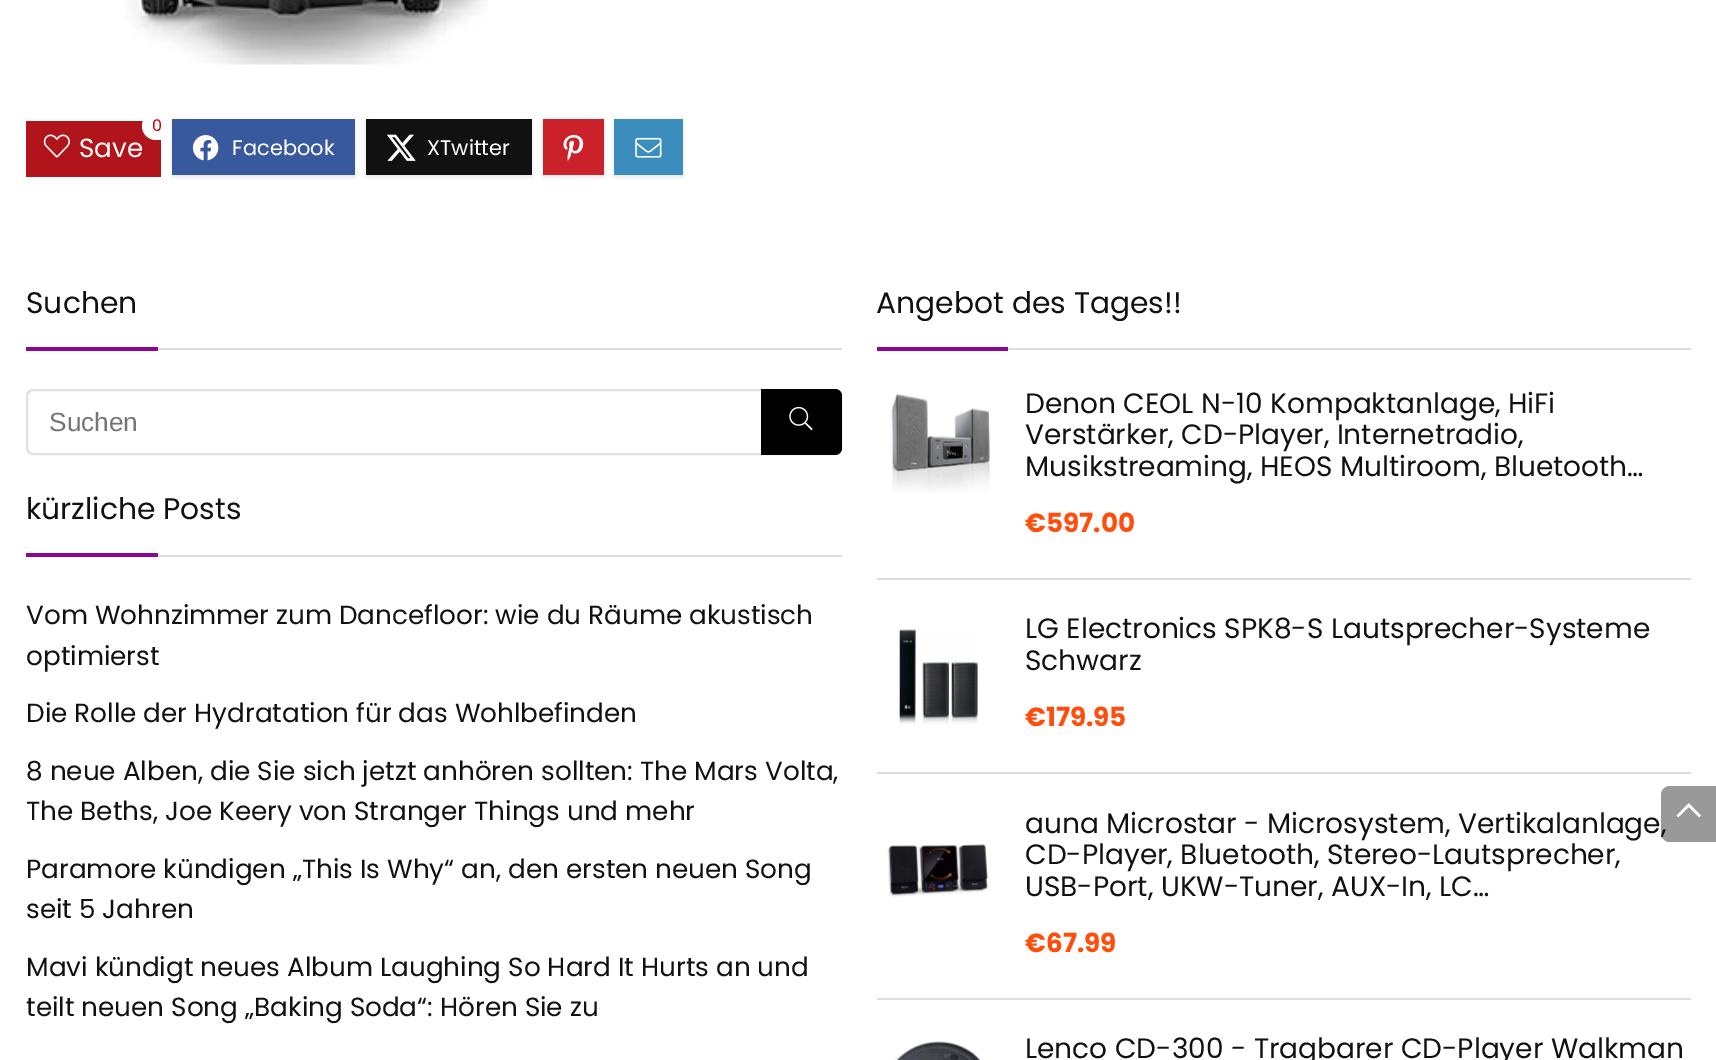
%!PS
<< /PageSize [1716 1060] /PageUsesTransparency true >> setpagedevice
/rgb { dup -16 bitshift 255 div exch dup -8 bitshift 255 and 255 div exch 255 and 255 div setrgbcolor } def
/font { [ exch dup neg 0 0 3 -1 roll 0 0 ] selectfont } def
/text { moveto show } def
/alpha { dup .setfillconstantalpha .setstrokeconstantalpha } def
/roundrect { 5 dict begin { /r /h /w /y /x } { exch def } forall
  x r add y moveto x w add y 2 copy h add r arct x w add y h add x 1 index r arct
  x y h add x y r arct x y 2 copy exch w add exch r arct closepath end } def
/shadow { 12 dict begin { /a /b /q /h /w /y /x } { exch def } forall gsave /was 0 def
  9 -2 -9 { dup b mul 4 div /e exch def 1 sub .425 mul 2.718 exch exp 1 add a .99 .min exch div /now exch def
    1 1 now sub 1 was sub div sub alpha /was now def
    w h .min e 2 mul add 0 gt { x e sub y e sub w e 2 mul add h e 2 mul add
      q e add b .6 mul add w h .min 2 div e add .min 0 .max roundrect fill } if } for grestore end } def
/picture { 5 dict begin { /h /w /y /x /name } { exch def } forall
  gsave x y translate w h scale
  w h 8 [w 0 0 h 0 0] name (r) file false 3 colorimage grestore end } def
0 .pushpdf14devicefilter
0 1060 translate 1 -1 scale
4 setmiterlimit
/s1 { /Poppins-Regular 16 font 16#CC0000 rgb } def
/s2 { /Poppins-Regular 26.25 font 16#FFFFFF rgb } def
/s3 { /Poppins-Regular 21 font 16#FFFFFF rgb } def
/s4 { /Poppins-Regular 29.75 font 16#111111 rgb } def
/s5 { /LiberationSans-Regular 26.25 font 16#757575 rgb } def
/s6 { /Poppins-Regular 28 font 16#111111 rgb } def
/s7 { /Poppins-Bold 26.25 font 16#FF4E0C rgb } def
/s8 { /Poppins-Regular 26.25 font 16#111111 rgb } def
16#FFFFFF rgb
0 0 1716 1060 rectfill
(pic1.raw) 125 0 364 65 picture
16#B1141A rgb
26 121 135 56 rectfill
16#FFFFFF rgb
142 112 31 28 14 roundrect fill
s1
(0) 152 131 text
(pic2.raw) 43 134 27 24 picture
s2
(Save) 79 157 text
16#E4E4E4 rgb
172 121 183 56 0 2 1 shadow
16#39599F rgb
172 119 183 56 rectfill
(pic3.raw) 192 135 27 26 picture
s3
(Facebook) 232 155 text
16#E4E4E4 rgb
366 121 166 56 0 2 1 shadow
16#111111 rgb
366 119 166 56 rectfill
(pic4.raw) 386 134 30 27 picture
s3
(XTwitter) 427 155 text
16#E4E4E4 rgb
543 121 61 56 0 2 1 shadow
16#CA212A rgb
543 119 61 56 rectfill
(pic5.raw) 563 135 21 26 picture
16#E4E4E4 rgb
614 121 69 56 0 2 1 shadow
16#3B8DBD rgb
614 119 69 56 rectfill
(pic6.raw) 635 137 27 21 picture
16#DDDDDD rgb
158 348 684 2 rectfill
s4
(Suchen) 26 313 text
16#8F0696 rgb
26 347 132 4 rectfill
16#E1E1E1 rgb
2 setlinewidth
27 390 814 64 6 roundrect stroke
s5
(Suchen) 49 431 text
16#000000 rgb
761 389 moveto 835 389 lineto 839 389 842 392 842 396 curveto 842 448 lineto 842 452 839 455 835 455 curveto 761 455 lineto closepath fill
(pic7.raw) 789 406 24 25 picture
16#DDDDDD rgb
1008 348 683 2 rectfill
s4
(Angebot des Tages!!) 876 313 text
16#8F0696 rgb
877 347 131 4 rectfill
16#DDDDDD rgb
877 578 814 2 rectfill
(pic8.raw) 891 394 99 99 picture
s6
(Denon CEOL N-10 Kompaktanlage, HiFi) 1025 413 text
(Verstärker, CD-Player, Internetradio,) 1025 444 text
(Musikstreaming, HEOS Multiroom, Bluetooth…) 1025 476 text
s7
(€597.00) 1025 532 text
16#DDDDDD rgb
877 772 814 2 rectfill
(pic9.raw) 898 629 80 95 picture
s6
(LG Electronics SPK8-S Lautsprecher-Systeme) 1025 638 text
(Schwarz) 1025 670 text
s7
(€179.95) 1025 726 text
16#DDDDDD rgb
877 998 814 2 rectfill
s6
(auna Microstar - Microsystem, Vertikalanlage,) 1025 833 text
(pic10.raw) 887 844 103 53 picture
(CD-Player, Bluetooth, Stereo-Lautsprecher,) 1025 864 text
(USB-Port, UKW-Tuner, AUX-In, LC…) 1025 896 text
s7
(€67.99) 1025 952 text
(pic11.raw) 895 1041 88 19 picture
s6
(Lenco CD-300 - Tragbarer CD-Player Walkman) 1025 1058 text
16#DDDDDD rgb
158 555 684 2 rectfill
s4
(kürzliche Posts) 26 519 text
16#8F0696 rgb
26 553 132 4 rectfill
s8
(Vom Wohnzimmer zum Dancefloor: wie du Räume akustisch) 26 624 text
(optimierst) 26 665 text
(Die Rolle der Hydratation für das Wohlbefinden) 26 722 text
(8 neue Alben, die Sie sich jetzt anhören sollten: The Mars Volta,) 26 780 text
(The Beths, Joe Keery von Stranger Things und mehr) 26 820 text
(Paramore kündigen „This Is Why“ an, den ersten neuen Song) 26 878 text
(seit 5 Jahren) 26 918 text
(Mavi kündigt neues Album Laughing So Hard It Hurts an und) 26 976 text
(teilt neuen Song „Baking Soda“: Hören Sie zu) 26 1016 text
0.4 alpha
16#000000 rgb
1670 786 moveto 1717 786 lineto 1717 842 lineto 1670 842 lineto 1665 842 1661 838 1661 833 curveto 1661 795 lineto 1661 790 1665 786 1670 786 curveto closepath fill
1 alpha
(pic12.raw) 1676 803 25 15 picture
.poppdf14devicefilter showpage
